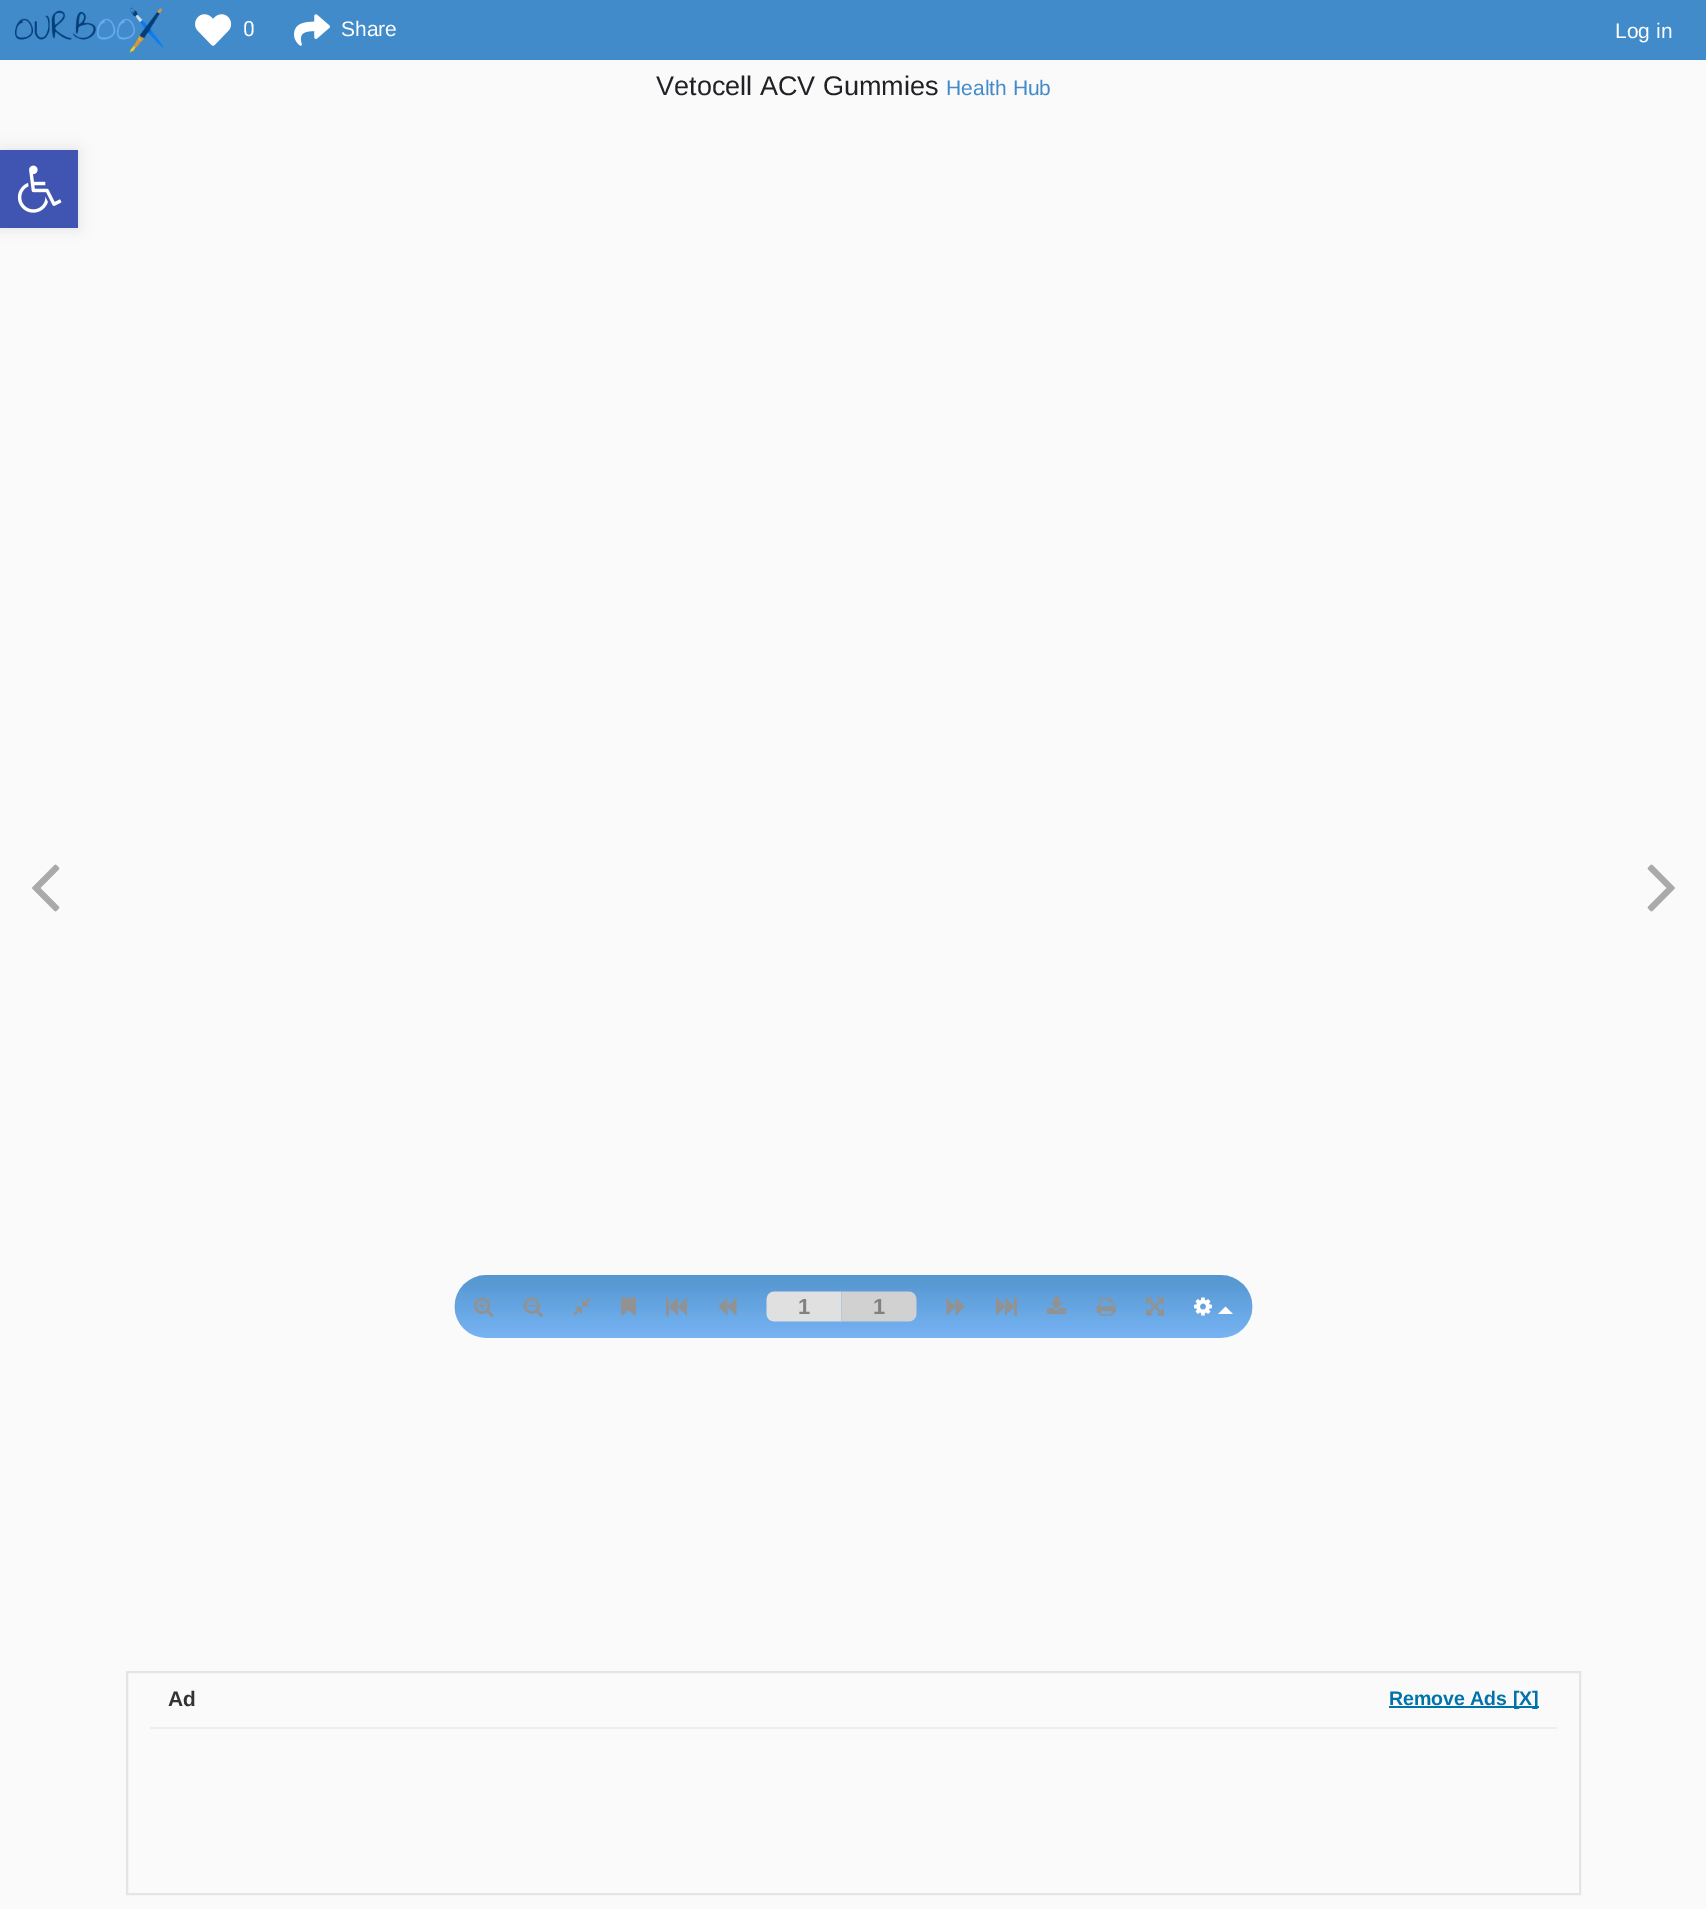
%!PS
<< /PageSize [1706 1909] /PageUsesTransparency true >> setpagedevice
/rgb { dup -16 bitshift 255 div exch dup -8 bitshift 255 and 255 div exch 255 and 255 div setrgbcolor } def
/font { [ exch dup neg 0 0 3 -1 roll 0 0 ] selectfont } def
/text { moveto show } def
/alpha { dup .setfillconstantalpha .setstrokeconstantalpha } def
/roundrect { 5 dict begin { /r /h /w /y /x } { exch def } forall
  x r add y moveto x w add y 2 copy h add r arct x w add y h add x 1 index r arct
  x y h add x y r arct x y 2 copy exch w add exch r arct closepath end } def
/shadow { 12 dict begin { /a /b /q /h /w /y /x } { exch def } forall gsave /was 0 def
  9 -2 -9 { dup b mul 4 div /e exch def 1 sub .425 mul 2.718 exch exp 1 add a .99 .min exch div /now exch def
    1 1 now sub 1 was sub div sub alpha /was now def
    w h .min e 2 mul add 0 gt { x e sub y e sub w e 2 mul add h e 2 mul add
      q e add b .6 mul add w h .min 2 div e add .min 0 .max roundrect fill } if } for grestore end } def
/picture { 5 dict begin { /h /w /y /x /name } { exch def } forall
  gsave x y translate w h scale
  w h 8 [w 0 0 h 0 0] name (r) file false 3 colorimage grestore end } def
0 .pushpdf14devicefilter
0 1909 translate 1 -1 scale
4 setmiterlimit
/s1 { /Roboto-Regular 21 font 16#FFFFFF rgb } def
/s2 { /LiberationSans-Regular 21 font 16#FFFFFF rgb } def
/s3 { /LiberationSans-Regular 27 font 16#202124 rgb } def
/s4 { /LiberationSans-Regular 21 font 16#428BCA rgb } def
/s5 { /LiberationSans-Bold 21 font 16#333333 rgb } def
/s6 { /LiberationSans-Bold 19.5 font 16#0073AA rgb } def
16#FAFAFA rgb
0 0 1706 1909 rectfill
16#000000 rgb
0 150 78 78 0 7.5 0.1 shadow
16#4054B2 rgb
0 150 78 78 rectfill
(pic1.raw) 17 165 45 48 picture
16#428BCA rgb
0 0 1706 60 rectfill
(pic2.raw) 15 7 149 46 picture
(pic3.raw) 195 14 37 32 picture
s1
(0) 243 36 text
(pic4.raw) 294 14 36 32 picture
s2
(Share) 341 36 text
(Log in) 1615 38 text
s3
(Vetocell ACV Gummies) 656 95 text
s4
(Health Hub) 946 95 text
(pic5.raw) 32 864 1643 474 picture
16#E5E5E5 rgb
2 setlinewidth
127 1672 1453 222 rectstroke
16#EEEEEE rgb
150 1727 1407 2 rectfill
s5
(Ad) 168 1706 text
16#0073AA rgb
1389 1706 150 2 rectfill
s6
(Remove Ads [X]) 1389 1705 text
.poppdf14devicefilter showpage
